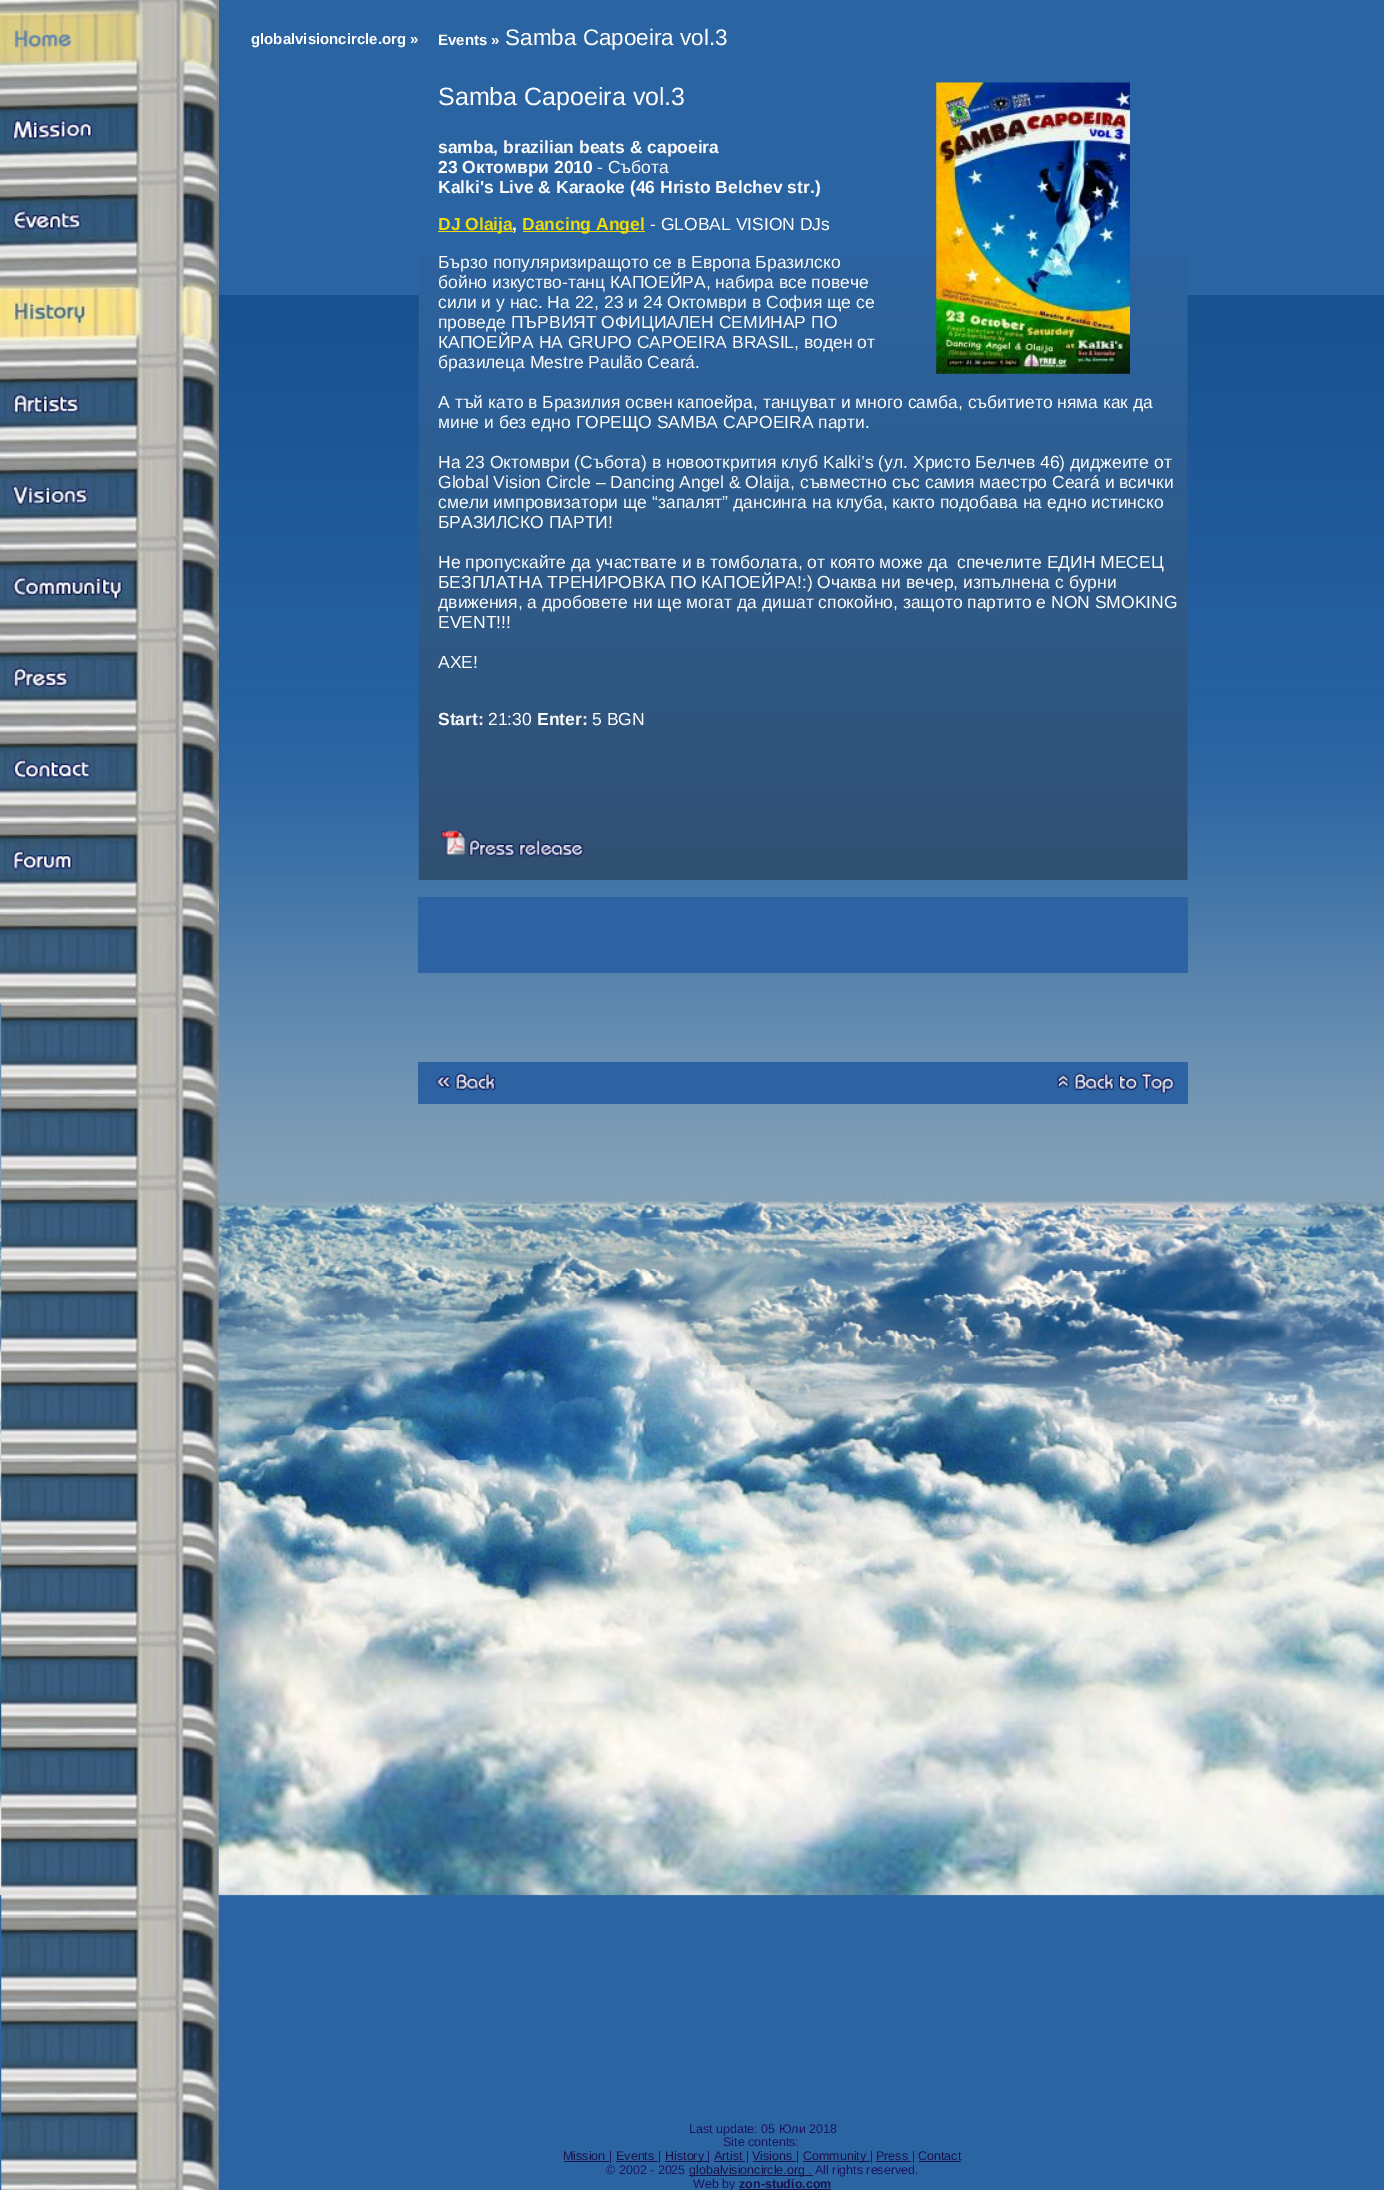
%!PS
<< /PageSize [1384 2190] >> setpagedevice
/rgb { dup -16 bitshift 255 div exch dup -8 bitshift 255 and 255 div exch 255 and 255 div setrgbcolor } def
/font { [ exch dup neg 0 0 3 -1 roll 0 0 ] selectfont } def
/text { moveto show } def
/picture { 5 dict begin { /h /w /y /x /name } { exch def } forall
  gsave x y translate w h scale
  w h 8 [w 0 0 h 0 0] name (r) file false 3 colorimage grestore end } def
0 2190 translate 1 -1 scale
4 setmiterlimit
/s1 { /LiberationSans-Bold 15 font 16#FFFFFF rgb } def
/s2 { /LiberationSans-Regular 22.5 font 16#FFFFFF rgb } def
/s3 { /LiberationSans-Regular 25 font 16#FFFFFF rgb } def
/s4 { /LiberationSans-Bold 17.5 font 16#FFFFFF rgb } def
/s5 { /LiberationSans-Regular 17.5 font 16#FFFFFF rgb } def
/s6 { /LiberationSans-Bold 17.5 font 16#EDDC0C rgb } def
/s7 { /LiberationSans-Regular 12.5 font 16#1B1464 rgb } def
/s8 { /LiberationSans-Regular 12.5 font 16#19134B rgb } def
/s9 { /LiberationSans-Bold 12.5 font 16#19134B rgb } def
16#2B64A2 rgb
0 0 1384 2190 rectfill
(pic1.raw) 0 295 1384 1601 picture
(pic2.raw) 1 0 218 2190 picture
(pic3.raw) 0 0 219 92 picture
(pic4.raw) 0 91 219 92 picture
(pic5.raw) 0 182 219 92 picture
(pic6.raw) 0 273 219 92 picture
(pic7.raw) 0 365 219 92 picture
(pic8.raw) 0 456 219 92 picture
(pic9.raw) 0 547 219 92 picture
(pic10.raw) 0 638 219 92 picture
(pic11.raw) 0 730 219 92 picture
(pic12.raw) 0 821 219 92 picture
(pic13.raw) 0 912 219 92 picture
s1
(globalvisioncircle.org ») 251 44 text
(Events ») 438 45 text
s2
(Samba Capoeira vol.3) 505 45 text
(pic14.raw) 418 257 770 623 picture
s3
(Samba Capoeira vol.3) 438 105 text
(pic15.raw) 936 82 194 292 picture
s4
(samba, brazilian beats & capoeira) 438 153 text
(23 Октомври 2010) 438 173 text
s5
(- Събота) 597 173 text
s4
(Kalki's Live & Karaoke \(46 Hristo Belchev str.\)) 438 193 text
16#EDDC0C rgb
438 231 75 1 rectfill
(DJ Olaija) 438 230 text
s4
(,) 512 230 text
16#EDDC0C rgb
523 231 122 1 rectfill
(Dancing Angel) 522 230 text
s5
(- GLOBAL VISION DJs) 650 230 text
(Бързо популяризиращото се в Европа Бразилско) 438 268 text
(бойно изкуство-танц КАПОЕЙРА, набира все повече) 438 288 text
(сили и у нас. На 22, 23 и 24 Октомври в София ще се) 438 308 text
(проведе ПЪРВИЯТ ОФИЦИАЛЕН СЕМИНАР ПО) 438 328 text
(КАПОЕЙРА НА GRUPO CAPOEIRA BRASIL, воден от) 438 348 text
(бразилеца Mestre Paulão Ceará.) 438 368 text
(А тъй като в Бразилия освен капоейра, танцуват и много самба, събитието няма как да) 438 408 text
(мине и без едно ГОРЕЩО SAMBA CAPOEIRA парти.) 438 428 text
(На 23 Октомври \(Събота\) в новооткрития клуб Kalki’s \(ул. Христо Белчев 46\) диджеите от) 438 468 text
(Global Vision Circle – Dancing Angel & Olaija, съвместно със самия маестро Ceará и всички) 438 488 text
(смели импровизатори ще “запалят” дансинга на клуба, както подобава на едно истинско) 438 508 text
(БРАЗИЛСКО ПАРТИ!) 438 528 text
(Не пропускайте да участвате и в томболата, от която може да  спечелите ЕДИН МЕСЕЦ) 438 568 text
(БЕЗПЛАТНА ТРЕНИРОВКА ПО КАПОЕЙРА!:\) Очаква ни вечер, изпълнена с бурни) 438 588 text
(движения, а дробовете ни ще могат да дишат спокойно, защото партито е NON SMOKING) 438 608 text
(EVENT!!!) 438 628 text
(AXE!) 438 668 text
s4
(Start:) 438 725 text
s5
(21:30) 488 725 text
s4
(Enter:) 537 725 text
s5
(5 BGN) 592 725 text
(pic16.raw) 441 830 143 27 picture
16#2D63A3 rgb
418 897 770 76 rectfill
418 1062 770 42 rectfill
(pic17.raw) 435 1076 17 12 picture
(pic18.raw) 455 1072 42 19 picture
(pic19.raw) 1057 1073 12 15 picture
(pic20.raw) 1073 1072 102 22 picture
s7
(Last update: 05 Юли 2018) 689 2133 text
(Site contents:) 723 2146 text
s8
(Mission) 563 2160 text
564 2161 45 1 rectfill
s7
(|) 609 2160 text
s8
(Events) 616 2160 text
616 2161 42 1 rectfill
s7
(|) 658 2160 text
16#19134B rgb
665 2161 43 1 rectfill
(History) 665 2160 text
s7
(|) 707 2160 text
s8
(Artist) 714 2160 text
714 2161 31 1 rectfill
s7
(|) 746 2160 text
s8
(Visions) 752 2160 text
753 2161 43 1 rectfill
s7
(|) 796 2160 text
16#19134B rgb
803 2161 67 1 rectfill
(Community) 803 2160 text
s7
(|) 870 2160 text
s8
(Press) 876 2160 text
876 2161 35 1 rectfill
s7
(|) 912 2160 text
s8
(Contact) 918 2160 text
919 2161 42 1 rectfill
s7
(© 2002 - 2025) 606 2174 text
16#19134B rgb
689 2175 124 1 rectfill
(globalvisioncircle.org .) 689 2174 text
s7
(All rights reserved.) 815 2174 text
(Web by) 693 2188 text
s9
(zon-studio.com) 739 2188 text
739 2189 92 1 rectfill
showpage
